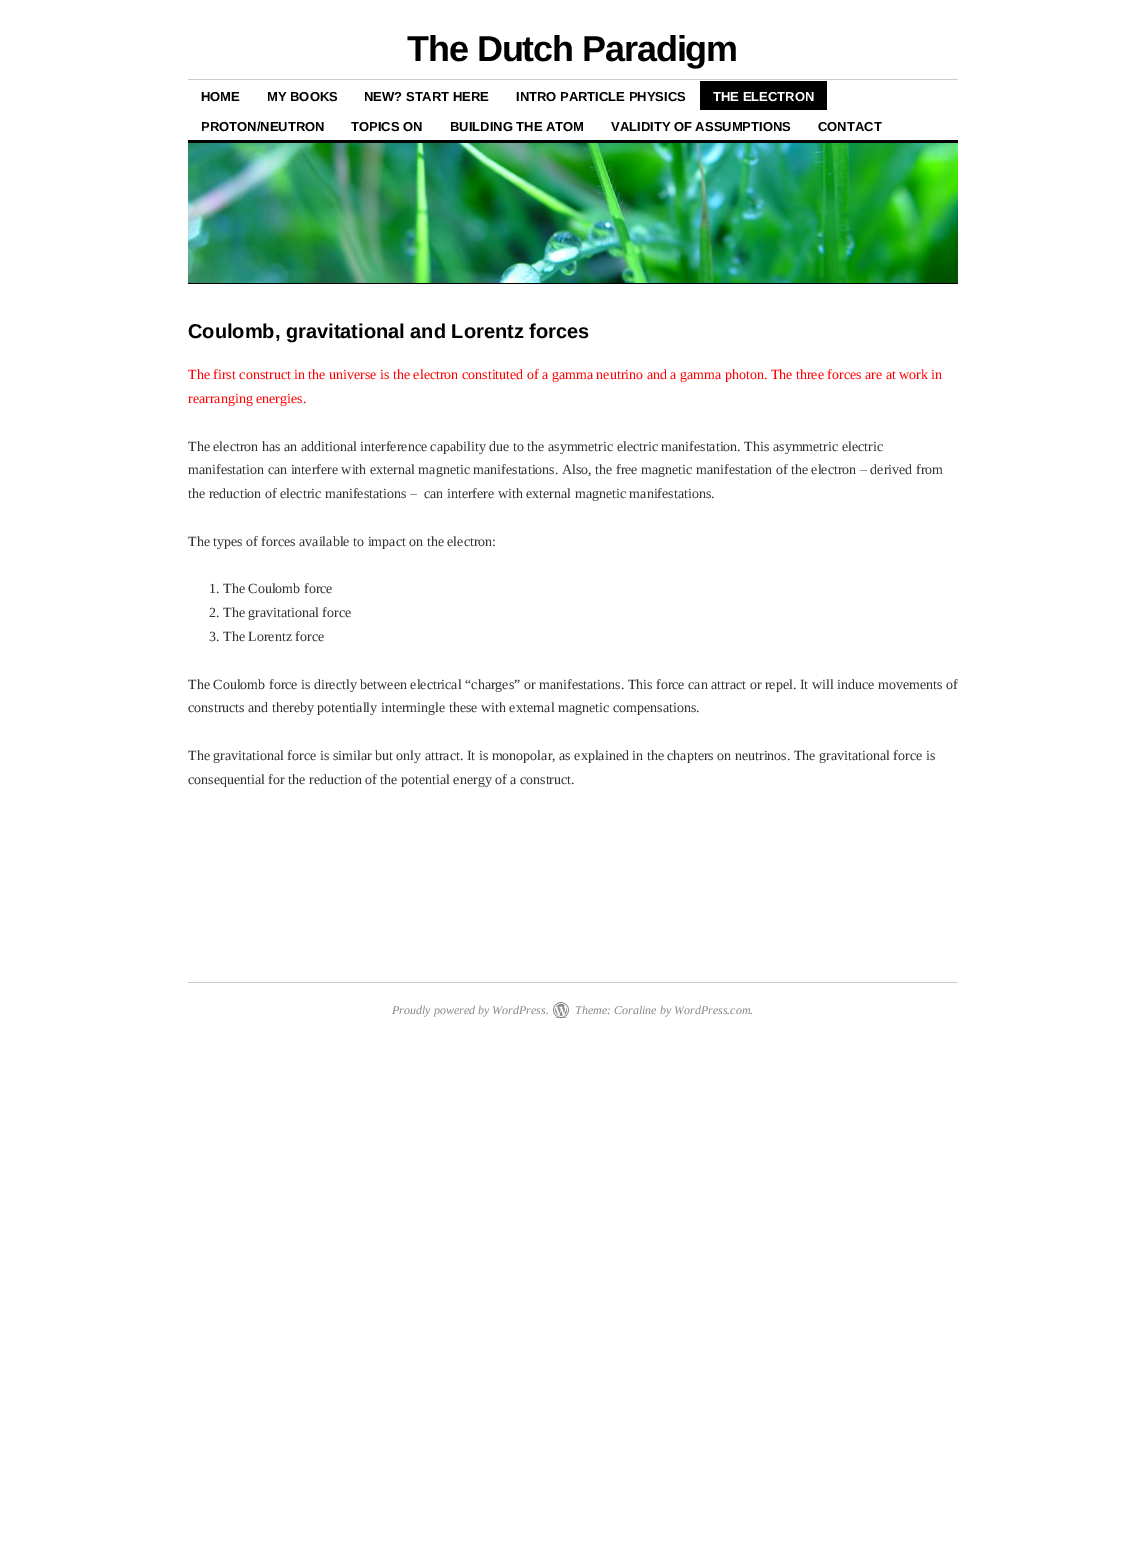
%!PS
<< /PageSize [1145 1567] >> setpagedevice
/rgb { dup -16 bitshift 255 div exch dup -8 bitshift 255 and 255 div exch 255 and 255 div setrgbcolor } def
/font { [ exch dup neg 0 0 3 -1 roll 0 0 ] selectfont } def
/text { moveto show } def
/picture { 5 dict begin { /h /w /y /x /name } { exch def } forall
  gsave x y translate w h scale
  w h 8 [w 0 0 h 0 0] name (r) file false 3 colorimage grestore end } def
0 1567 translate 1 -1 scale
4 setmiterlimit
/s1 { /LiberationSans-Bold 13 font 16#000000 rgb } def
/s2 { /LiberationSans-Bold 13 font 16#FFFFFF rgb } def
/s3 { /LiberationSans-Bold 20 font 16#000000 rgb } def
/s4 { /LiberationSerif-Regular 14 font 16#FF0000 rgb } def
/s5 { /LiberationSerif-Regular 14 font 16#333333 rgb } def
/s6 { /LiberationSerif-Italic 12 font 16#888888 rgb } def
16#FFFFFF rgb
0 0 1145 1567 rectfill
/LiberationSans-Bold 36 font
16#000000 rgb
407 61 moveto -1.1 0 (The Dutch Paradigm) ashow
16#CCCCCC rgb
188 79 770 1 rectfill
s1
(HOME) 201 101 text
(MY BOOKS) 267 101 text
(NEW? START HERE) 364 101 text
(INTRO PARTICLE PHYSICS) 516 101 text
700 81 127 29 rectfill
s2
(THE ELECTRON) 713 101 text
s1
(PROTON/NEUTRON) 201 131 text
(TOPICS ON) 351 131 text
(BUILDING THE ATOM) 450 131 text
(VALIDITY OF ASSUMPTIONS) 611 131 text
(CONTACT) 818 131 text
188 140 770 3 rectfill
(pic1.raw) 188 143 770 140 picture
188 283 770 1 rectfill
s3
(Coulomb, gravitational and Lorentz forces) 188 338 text
s4
(The first construct in the universe is the electron constituted of a gamma neutrino and a gamma photon. The three forces are at work in) 188 379 text
(rearranging energies.) 188 403 text
s5
(The electron has an additional interference capability due to the asymmetric electric manifestation. This asymmetric electric) 188 451 text
(manifestation can interfere with external magnetic manifestations. Also, the free magnetic manifestation of the electron – derived from) 188 474 text
(the reduction of electric manifestations –  can interfere with external magnetic manifestations.) 188 498 text
(The types of forces available to impact on the electron:) 188 546 text
(1. The Coulomb force) 209 593 text
(2. The gravitational force) 209 617 text
(3. The Lorentz force) 209 641 text
(The Coulomb force is directly between electrical “charges” or manifestations. This force can attract or repel. It will induce movements of) 188 689 text
(constructs and thereby potentially intermingle these with external magnetic compensations.) 188 712 text
(The gravitational force is similar but only attract. It is monopolar, as explained in the chapters on neutrinos. The gravitational force is) 188 760 text
(consequential for the reduction of the potential energy of a construct.) 188 784 text
16#CCCCCC rgb
188 982 770 1 rectfill
(pic2.raw) 553 1002 16 16 picture
s6
(Proudly powered by WordPress.) 392 1014 text
(Theme: Coraline by WordPress.com.) 575 1014 text
showpage
